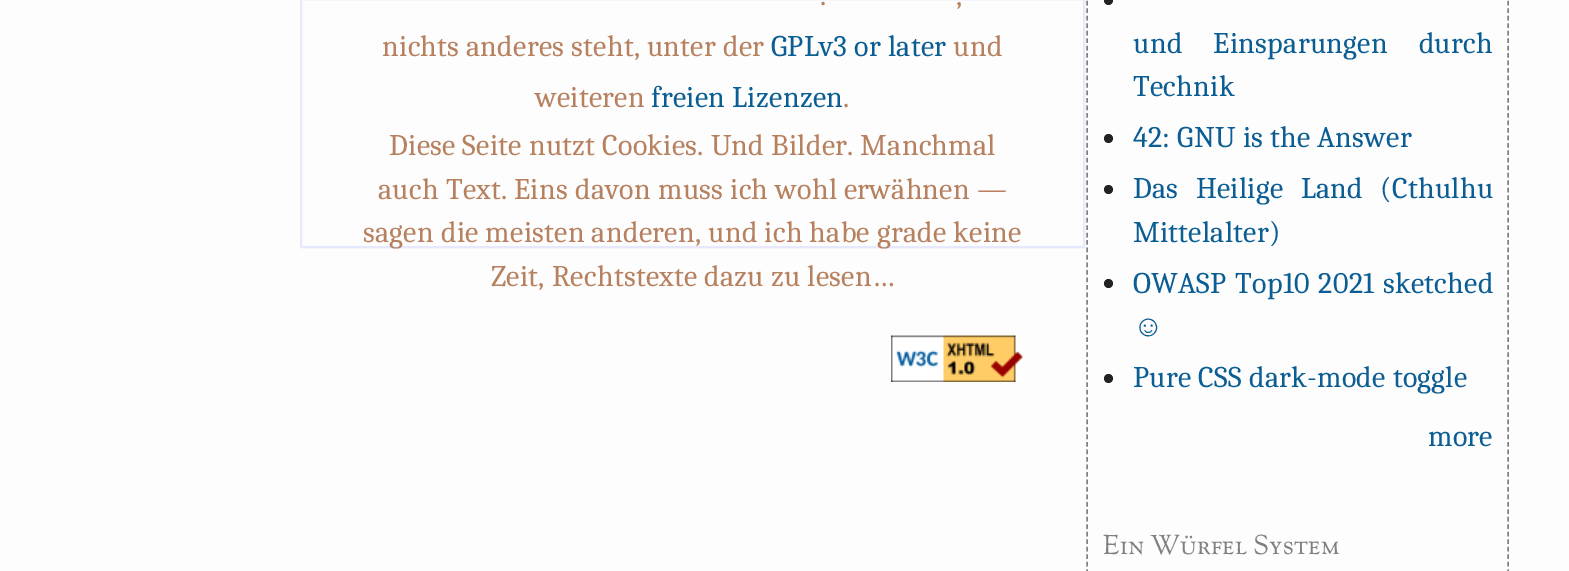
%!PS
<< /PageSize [1569 571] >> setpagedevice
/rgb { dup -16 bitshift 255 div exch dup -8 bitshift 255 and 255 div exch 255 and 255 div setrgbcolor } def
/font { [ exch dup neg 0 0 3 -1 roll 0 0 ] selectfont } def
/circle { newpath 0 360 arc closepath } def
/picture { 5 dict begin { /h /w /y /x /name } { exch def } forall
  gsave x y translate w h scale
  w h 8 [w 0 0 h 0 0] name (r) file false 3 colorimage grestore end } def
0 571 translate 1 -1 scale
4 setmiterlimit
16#FDFDFD rgb
0 0 1569 571 rectfill
16#E6E9FE rgb
2 setlinewidth
301 -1 783 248 rectstroke
/Caladea-Regular 30 font
16#B7815F rgb
820 5 moveto 0.25 0 (.) ashow
956 5 moveto 0.25 0 (,) ashow
382 56 moveto 0.25 0 (nichts anderes steht, unter der) ashow
16#0B5E93 rgb
771 56 moveto 0.25 0 (GPLv3 or later) ashow
16#B7815F rgb
953 56 moveto 0.25 0 (und) ashow
535 107 moveto 0.25 0 (weiteren) ashow
16#0B5E93 rgb
651 107 moveto 0.25 0 (freien Lizenzen) ashow
16#B7815F rgb
843 107 moveto 0.25 0 (.) ashow
389 155 moveto 0.25 0 (Diese Seite nutzt Cookies. Und Bilder. Manchmal) ashow
378 199 moveto 0.25 0 (auch Text. Eins davon muss ich wohl erwähnen —) ashow
363 242 moveto 0.25 0 (sagen die meisten anderen, und ich habe grade keine) ashow
491 286 moveto 0.25 0 (Zeit, Rechtstexte dazu zu lesen…) ashow
(pic1.raw) 891 335 132 47 picture
16#808080 rgb
1.5 setlinewidth
[4.5 2.98] 0 setdash
1508 -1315.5 moveto 1508 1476 lineto stroke
1087 -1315.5 moveto 1087 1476 lineto stroke
16#222222 rgb
1108.5 0.5 4.5 circle fill
16#0B5E93 rgb
1133 53 moveto 24 0 32 0.25 0 (und Einsparungen durch) awidthshow
1133 96 moveto 0.25 0 (Technik) ashow
16#222222 rgb
1108.5 138.5 4.5 circle fill
16#0B5E93 rgb
1133 147 moveto 0.25 0 (42: GNU is the Answer) ashow
16#222222 rgb
1108.5 189.5 4.5 circle fill
16#0B5E93 rgb
1133 198 moveto 10.5 0 32 0.25 0 (Das Heilige Land \(Cthulhu) awidthshow
1133 242 moveto 0.25 0 (Mittelalter\)) ashow
16#222222 rgb
1108.5 283.5 4.5 circle fill
16#0B5E93 rgb
1133 293 moveto 2 0 32 0.25 0 (OWASP Top10 2021 sketched) awidthshow
/LiberationSerif-Regular 30 font
1133 336 moveto 0.25 0 (☺) ashow
16#222222 rgb
1108.5 378.5 4.5 circle fill
/Caladea-Regular 30 font
16#0B5E93 rgb
1133 387 moveto 0.25 0 (Pure CSS dark-mode toggle) ashow
1428 446 moveto 0.25 0 (more) ashow
/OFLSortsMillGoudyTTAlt-Medium 27 font
16#808080 rgb
1103 554 moveto 0.25 0 (Ein Würfel System) ashow
showpage
